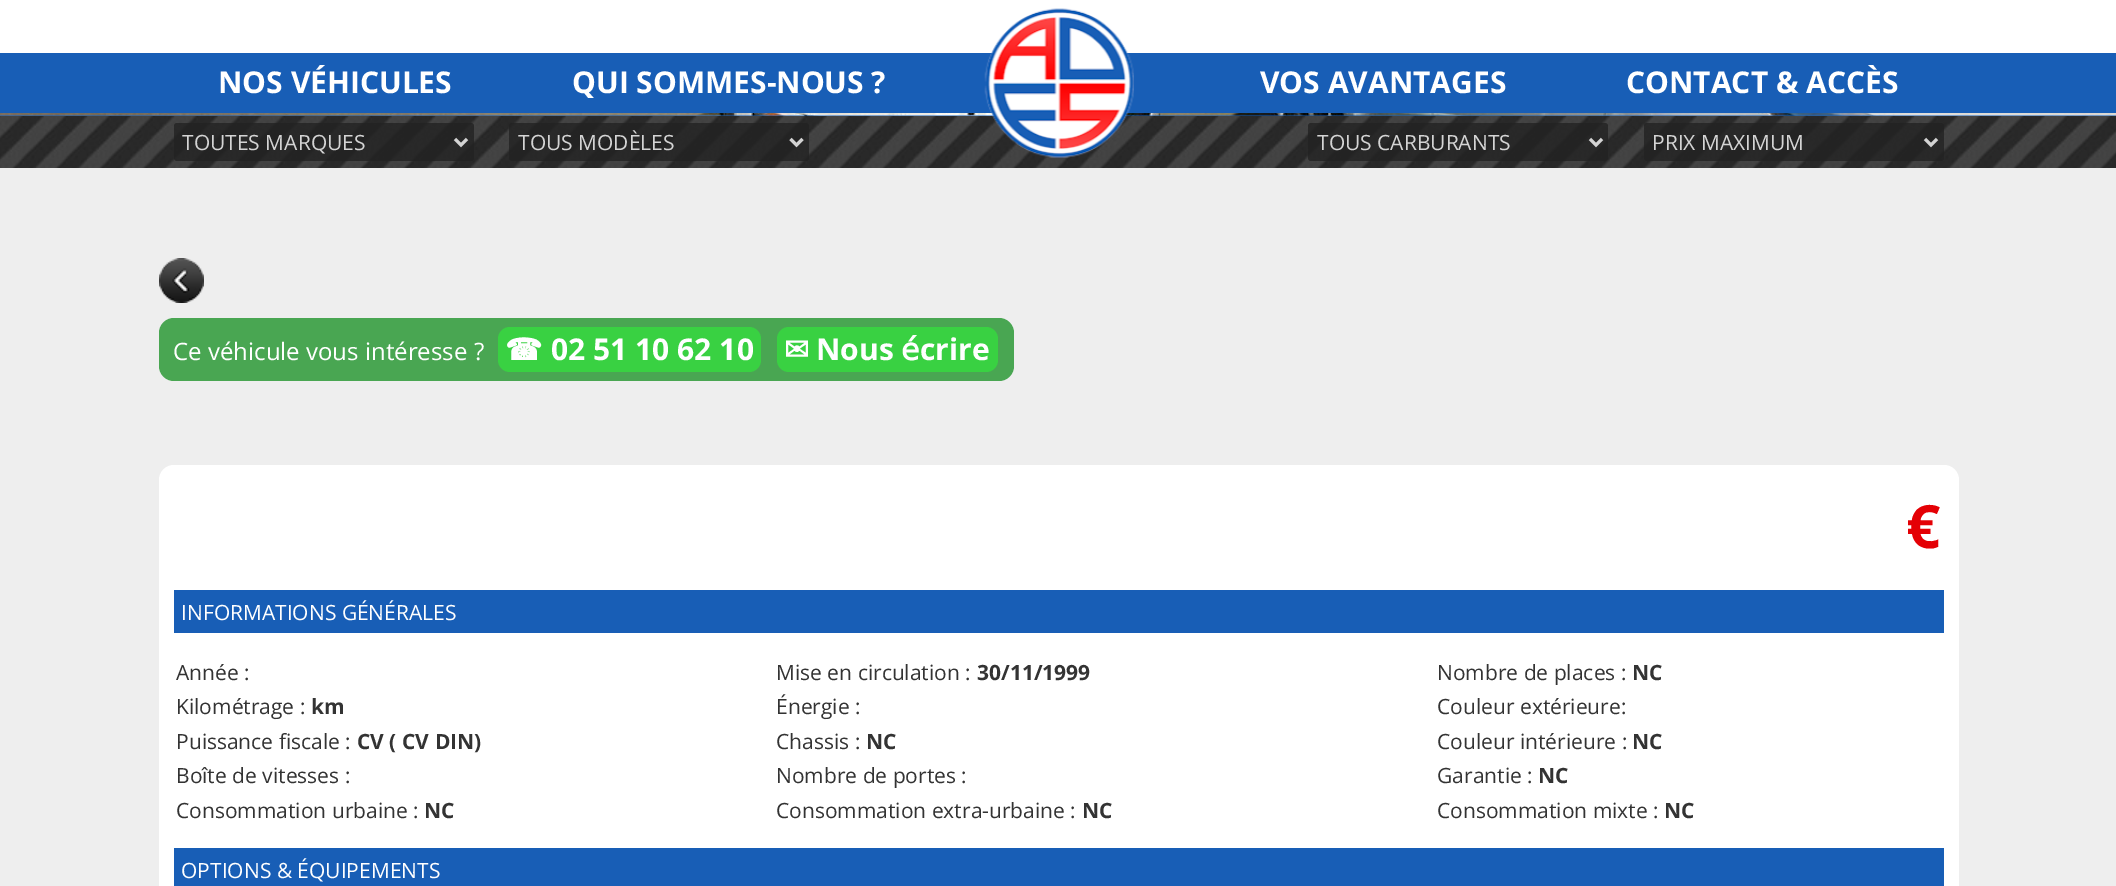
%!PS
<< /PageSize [2116 886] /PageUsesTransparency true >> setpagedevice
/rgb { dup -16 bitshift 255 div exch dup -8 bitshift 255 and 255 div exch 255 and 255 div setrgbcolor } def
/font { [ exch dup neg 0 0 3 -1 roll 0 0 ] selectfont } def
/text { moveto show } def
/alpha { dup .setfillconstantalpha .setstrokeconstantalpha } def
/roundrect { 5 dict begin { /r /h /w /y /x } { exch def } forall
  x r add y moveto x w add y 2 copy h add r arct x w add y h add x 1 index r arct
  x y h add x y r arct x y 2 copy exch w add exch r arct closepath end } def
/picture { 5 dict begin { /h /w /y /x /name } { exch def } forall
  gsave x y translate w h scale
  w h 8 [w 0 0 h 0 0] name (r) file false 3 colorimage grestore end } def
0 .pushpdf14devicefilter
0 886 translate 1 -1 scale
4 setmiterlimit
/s1 { /OpenSans-Bold 30 font 16#FFFFFF rgb } def
/s2 { /OpenSans-Regular 21 font 16#D4D4D4 rgb } def
/s3 { /OpenSans-Regular 24 font 16#FFFFFF rgb } def
/s4 { /DejaVuSans-Bold 30 font 16#FFFFFF rgb } def
/s5 { /OpenSans-Bold 60 font 16#E40005 rgb } def
/s6 { /OpenSans-Regular 21 font 16#FFFFFF rgb } def
/s7 { /OpenSans-Regular 21 font 16#333333 rgb } def
/s8 { /OpenSans-Bold 21 font 16#333333 rgb } def
16#EEEEEE rgb
0 0 2116 886 rectfill
16#FFFFFF rgb
0 0 2116 53 rectfill
16#185EB6 rgb
0 53 2116 60 rectfill
0 115 2116 1 rectfill
(pic2.raw) 0 113 2116 3 picture
(pic3.raw) 0 116 2116 52 picture
(pic1.raw) 984 8 150 150 picture
s1
(NOS VÉHICULES) 218 93 text
(QUI SOMMES-NOUS ?) 572 93 text
(VOS AVANTAGES) 1260 93 text
(CONTACT & ACCÈS) 1626 93 text
0.8 alpha
16#222222 rgb
174 123 300 38 3 roundrect fill
16#FFFFFF rgb
3 setlinewidth
455 139 moveto 461 145 lineto 467 139 lineto stroke
1 alpha
s2
(TOUTES MARQUES) 182 150 text
0.8 alpha
16#222222 rgb
509 123 300 38 3 roundrect fill
16#FFFFFF rgb
790.5 139 moveto 796.5 145 lineto 802.5 139 lineto stroke
1 alpha
s2
(TOUS MODÈLES) 518 150 text
0.8 alpha
16#222222 rgb
1308 123 300 38 3 roundrect fill
1 alpha
16#D4D4D4 rgb
1590 139 moveto 1596 145 lineto 1602 139 lineto stroke
(TOUS CARBURANTS) 1317 150 text
0.8 alpha
16#222222 rgb
1644 123 300 38 3 roundrect fill
16#FFFFFF rgb
1925 139 moveto 1931 145 lineto 1937 139 lineto stroke
1 alpha
s2
(PRIX MAXIMUM) 1652 150 text
(pic4.raw) 159 258 45 45 picture
16#49A652 rgb
159 318 855 63 15 roundrect fill
s3
(Ce véhicule vous intéresse ?) 173 360 text
16#39D142 rgb
498 327 263 45 12 roundrect fill
s4
(☎) 505 360 text
s1
(02 51 10 62 10) 551 360 text
16#39D142 rgb
777 327 221 45 12 roundrect fill
s4
(✉) 784 360 text
s1
(Nous) 816 360 text
s4
(é) 901 360 text
s1
(crire) 920 360 text
159 465 1800 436 15 roundrect fill
s5
(€) 1906 548 text
16#185EB6 rgb
174 590 1770 43 rectfill
s6
(INFORMATIONS GÉNÉRALES) 181 620 text
s7
(Année :) 176 680 text
(Mise en circulation :) 776 680 text
s8
(30/11/1999) 977 680 text
s7
(Nombre de places :) 1437 680 text
s8
(NC) 1632 680 text
s7
(Kilométrage :) 176 714 text
s8
(km) 311 714 text
s7
(Énergie :) 776 714 text
(Couleur extérieure:) 1437 714 text
(Puissance fiscale :) 176 749 text
s8
(CV \( CV DIN\)) 357 749 text
s7
(Chassis :) 776 749 text
s8
(NC) 866 749 text
s7
(Couleur intérieure :) 1437 749 text
s8
(NC) 1632 749 text
s7
(Boîte de vitesses :) 176 783 text
(Nombre de portes :) 776 783 text
(Garantie :) 1437 783 text
s8
(NC) 1538 783 text
s7
(Consommation urbaine :) 176 818 text
s8
(NC) 424 818 text
s7
(Consommation extra-urbaine :) 776 818 text
s8
(NC) 1082 818 text
s7
(Consommation mixte :) 1437 818 text
s8
(NC) 1664 818 text
16#185EB6 rgb
174 848 1770 38 rectfill
s6
(OPTIONS & ÉQUIPEMENTS) 181 878 text
.poppdf14devicefilter showpage
